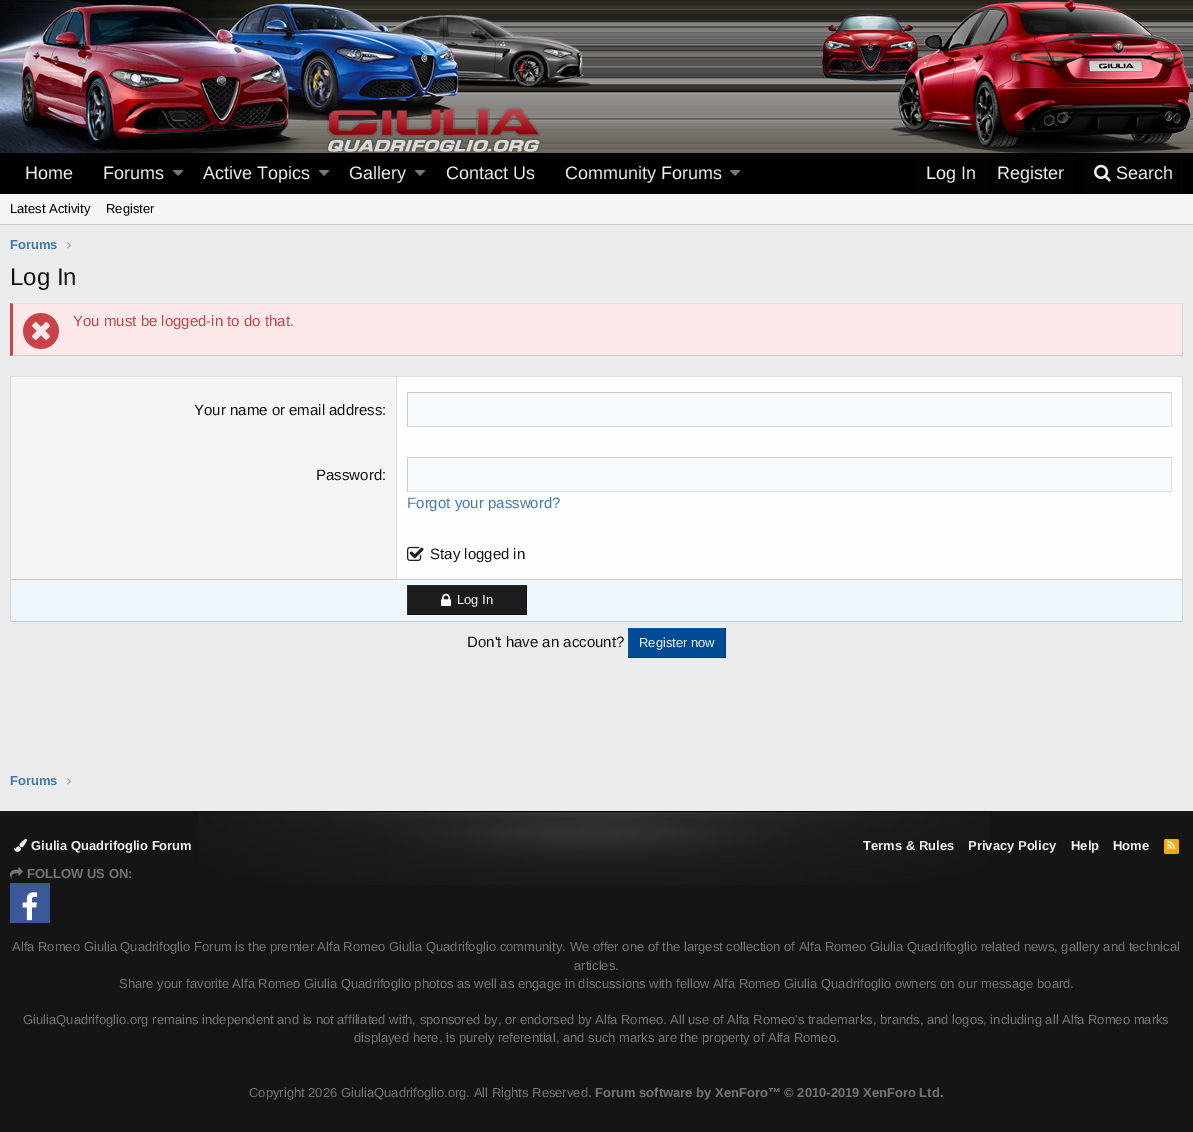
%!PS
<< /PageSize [1193 1132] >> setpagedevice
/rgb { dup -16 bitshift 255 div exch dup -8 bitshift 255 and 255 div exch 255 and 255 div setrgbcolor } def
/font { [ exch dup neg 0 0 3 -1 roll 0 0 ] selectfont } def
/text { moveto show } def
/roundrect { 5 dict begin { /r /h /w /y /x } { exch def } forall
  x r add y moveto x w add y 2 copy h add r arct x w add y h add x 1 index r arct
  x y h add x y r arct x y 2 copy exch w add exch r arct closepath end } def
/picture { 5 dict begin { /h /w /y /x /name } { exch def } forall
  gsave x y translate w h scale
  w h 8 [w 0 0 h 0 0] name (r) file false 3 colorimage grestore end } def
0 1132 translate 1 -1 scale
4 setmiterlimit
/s1 { /LiberationSans-Regular 18 font 16#EEEEEE rgb } def
/s2 { /LiberationSans-Regular 13 font 16#000000 rgb } def
/s3 { /LiberationSans-Bold 13 font 16#3F7BAE rgb } def
/s4 { /LiberationSans-Regular 24 font 16#141414 rgb } def
/s5 { /LiberationSans-Regular 15 font 16#C84448 rgb } def
/s6 { /LiberationSans-Regular 15 font 16#141414 rgb } def
/s7 { /LiberationSans-Regular 15 font 16#3F7BAE rgb } def
/s8 { /LiberationSans-Regular 13 font 16#FFFFFF rgb } def
/s9 { /LiberationSans-Regular 13 font 16#EDF6FD rgb } def
/s10 { /LiberationSans-Bold 13 font 16#EEEEEE rgb } def
/s11 { /LiberationSans-Bold 13 font 16#747474 rgb } def
/s12 { /LiberationSans-Regular 13 font 16#747474 rgb } def
16#ECECEC rgb
0 0 1193 1132 rectfill
(pic1.raw) 591 0 602 153 picture
(pic2.raw) 0 0 591 153 picture
(pic3.raw) 822 0 369 153 picture
16#000000 rgb
0 153 1193 41 rectfill
s1
(Home) 25 179 text
(Forums) 103 179 text
(pic4.raw) 173 170 11 6 picture
(Active Topics) 203 179 text
(pic4.raw) 319 170 11 6 picture
(Gallery) 349 179 text
(pic4.raw) 415 170 11 6 picture
(Contact Us) 446 179 text
(Community Forums) 565 179 text
(pic4.raw) 730 170 11 6 picture
16#030303 rgb
916 153 158 41 rectfill
s1
(Log In) 926 179 text
16#060606 rgb
986 153 1 41 rectfill
s1
(Register) 997 179 text
16#030303 rgb
1083 153 100 41 rectfill
(pic5.raw) 1094 164 17 18 picture
s1
(Search) 1116 179 text
16#F5F5F5 rgb
0 194 1193 30 rectfill
16#CBCBCB rgb
0 224 1193 1 rectfill
s2
(Latest Activity) 10 213 text
(Register) 106 213 text
s3
(Forums) 10 249 text
(pic6.raw) 67 242 4 7 picture
s4
(Log In) 10 285 text
16#FDE9E9 rgb
13 304 1169 51 rectfill
16#DFDFDF rgb
10 303 moveto 1183 303 lineto 1182 304 lineto 13 304 lineto closepath fill
16#D8D8D8 rgb
1182 303 1 53 rectfill
16#CBCBCB rgb
1183 356 moveto 10 356 lineto 13 355 lineto 1182 355 lineto closepath fill
16#C84448 rgb
10 356 moveto 10 303 lineto 13 304 lineto 13 355 lineto closepath fill
(pic7.raw) 23 313 36 36 picture
s5
(You must be logged-in to do that.) 73 326 text
16#FEFEFE rgb
397 377 785 202 rectfill
16#DFDFDF rgb
10 376 1173 1 rectfill
16#D8D8D8 rgb
1182 376 1 246 rectfill
16#CBCBCB rgb
10 621 1173 1 rectfill
16#D8D8D8 rgb
10 376 1 246 rectfill
16#F5F5F5 rgb
11 377 385 202 rectfill
16#DFDFDF rgb
396 377 1 202 rectfill
s6
(Your name or email address:) 194 415 text
16#F7FBFE rgb
408 393 763 33 rectfill
16#CBCBCB rgb
407 392 765 1 rectfill
16#DFDFDF rgb
1171 392 1 35 rectfill
407 426 765 1 rectfill
16#CBCBCB rgb
407 392 1 35 rectfill
s6
(Password:) 316 480 text
16#F7FBFE rgb
408 458 763 33 rectfill
16#CBCBCB rgb
407 457 765 1 rectfill
16#DFDFDF rgb
1171 457 1 35 rectfill
407 491 765 1 rectfill
16#CBCBCB rgb
407 457 1 35 rectfill
s7
(Forgot your password?) 407 508 text
(pic8.raw) 407 546 17 15 picture
s6
(Stay logged in) 430 559 text
16#EDF6FD rgb
11 580 1171 41 rectfill
16#CBCBCB rgb
11 579 1171 1 rectfill
16#1D1D1D rgb
408 586 118 28 rectfill
16#2A2A2A rgb
407 585 120 1 rectfill
16#101010 rgb
526 585 1 30 rectfill
407 614 120 1 rectfill
16#2A2A2A rgb
407 585 1 30 rectfill
(pic9.raw) 441 593 11 13 picture
s8
(Log In) 457 604 text
s6
(Don't have an account?) 467 647 text
16#004B94 rgb
629 629 96 28 rectfill
16#0058AE rgb
628 628 98 1 rectfill
16#003E7B rgb
725 628 1 30 rectfill
628 657 98 1 rectfill
16#0058AE rgb
628 628 1 30 rectfill
s9
(Register now) 639 647 text
s3
(Forums) 10 785 text
(pic6.raw) 67 778 4 7 picture
16#151515 rgb
0 811 1193 321 rectfill
(pic10.raw) 198 811 792 74 picture
(pic11.raw) 14 838 13 14 picture
s10
(Giulia Quadrifoglio Forum) 31 850 text
(Terms & Rules) 863 850 text
(Privacy Policy) 968 850 text
(Help) 1071 850 text
(Home) 1113 850 text
16#FFA500 rgb
1164 839 15 15 2 roundrect fill
(pic12.raw) 1167 840 9 9 picture
(pic13.raw) 10 867 13 12 picture
s11
(FOLLOW US ON:) 27 878 text
16#3B5998 rgb
10 883 40 40 rectfill
(pic14.raw) 22 892 16 29 picture
s12
(Alfa Romeo Giulia Quadrifoglio Forum is the premier Alfa Romeo Giulia Quadrifoglio community. We offer one of the largest collection of Alfa Romeo Giulia Quadrifoglio related news, gallery and technical) 12 951 text
(articles.) 574 970 text
(Share your favorite Alfa Romeo Giulia Quadrifoglio photos as well as engage in discussions with fellow Alfa Romeo Giulia Quadrifoglio owners on our message board.) 119 988 text
(GiuliaQuadrifoglio.org remains independent and is not affiliated with, sponsored by, or endorsed by Alfa Romeo. All use of Alfa Romeo's trademarks, brands, and logos, including all Alfa Romeo marks) 23 1024 text
(displayed here, is purely referential, and such marks are the property of Alfa Romeo.) 354 1042 text
(Copyright 2026 GiuliaQuadrifoglio.org. All Rights Reserved.) 249 1097 text
s11
(Forum software by XenForo™ © 2010-2019 XenForo Ltd.) 595 1097 text
showpage
